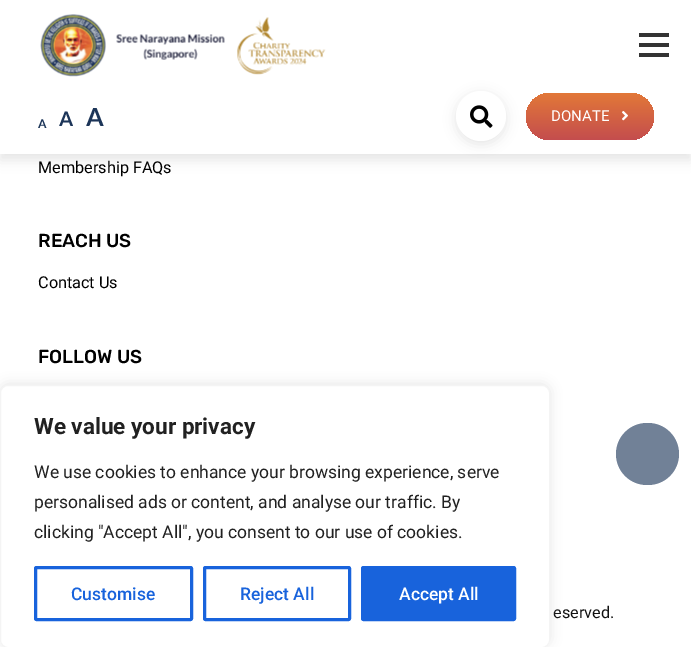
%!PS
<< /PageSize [691 647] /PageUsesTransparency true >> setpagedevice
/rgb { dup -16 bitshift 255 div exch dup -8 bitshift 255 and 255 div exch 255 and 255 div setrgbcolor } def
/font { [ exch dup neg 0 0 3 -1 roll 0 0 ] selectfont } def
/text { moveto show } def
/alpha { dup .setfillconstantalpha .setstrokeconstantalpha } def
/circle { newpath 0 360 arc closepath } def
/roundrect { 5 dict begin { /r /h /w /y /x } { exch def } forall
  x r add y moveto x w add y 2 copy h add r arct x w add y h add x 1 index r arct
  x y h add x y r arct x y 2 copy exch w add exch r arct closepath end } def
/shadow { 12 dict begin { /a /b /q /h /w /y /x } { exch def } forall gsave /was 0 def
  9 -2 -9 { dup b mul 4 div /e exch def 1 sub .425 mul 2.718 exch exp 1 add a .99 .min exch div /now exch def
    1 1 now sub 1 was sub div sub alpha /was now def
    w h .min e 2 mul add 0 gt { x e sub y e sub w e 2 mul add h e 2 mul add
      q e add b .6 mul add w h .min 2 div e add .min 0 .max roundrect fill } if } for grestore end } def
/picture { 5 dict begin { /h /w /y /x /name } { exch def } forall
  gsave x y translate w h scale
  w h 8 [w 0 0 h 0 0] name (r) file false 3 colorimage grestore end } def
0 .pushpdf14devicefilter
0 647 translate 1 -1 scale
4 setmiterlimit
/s1 { /Lato-Bold 12 font 16#1C3558 rgb } def
/s2 { /Lato-Bold 20 font 16#1C3558 rgb } def
/s3 { /Lato-Bold 25 font 16#1C3558 rgb } def
/s4 { /Roboto-Regular 15 font 16#FFFFFF rgb } def
/s5 { /Roboto-Regular 16.25 font 16#000000 rgb } def
/s6 { /Rubik-Medium 18.75 font 16#000000 rgb } def
/s7 { /Roboto-Regular 16.25 font 16#111111 rgb } def
/s8 { /Roboto-Bold 22.5 font 16#212121 rgb } def
/s9 { /Roboto-Regular 17.5 font 16#212121 rgb } def
/s10 { /Roboto-Medium 17.5 font 16#1863DC rgb } def
/s11 { /Roboto-Medium 17.5 font 16#FFFFFF rgb } def
16#FFFFFF rgb
0 0 691 647 rectfill
16#000000 rgb
0 6 691 154 0 6 0.1 shadow
16#FFFFFF rgb
0 0 691 154 rectfill
(pic1.raw) 40 14 185 63 picture
(pic2.raw) 237 17 89 58 picture
16#333333 rgb
639 33 30 4 rectfill
639 43 30 4 rectfill
639 53 30 4 rectfill
s1
(A) 38 128 text
s2
(A) 59 126 text
s3
(A) 86 126 text
16#000000 rgb
456 94 50 50 25 6 0.1 shadow
16#FFFFFF rgb
481 116 25 circle fill
(pic3.raw) 470 105 23 23 picture
gsave 526 93 128 47 23.5 roundrect clip newpath
<< /ShadingType 2 /ColorSpace /DeviceRGB /Coords [590 93 590 140] /Extend [true true] /Function << /FunctionType 2 /Domain [0 1] /C0 [0.886 0.471 0.22] /C1 [0.769 0.302 0.306] /N 1 >> >> shfill grestore
s4
(DONATE) 551 121 text
(pic4.raw) 622 111 6 10 picture
s5
(Membership FAQs) 38 173 text
s6
(REACH US) 38 247 text
s5
(Contact Us) 38 288 text
s6
(FOLLOW US) 38 363 text
s7
(eserved.) 553 618 text
16#ACABAB rgb
0 384 550 262 8 6 0.3 shadow
16#FFFFFF rgb
0.5 385.5 549 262 7.5 roundrect gsave fill grestore
16#F4F4F4 rgb
stroke
s8
(We value your privacy) 34 434 text
s9
(We use cookies to enhance your browsing experience, serve) 34 478 text
(personalised ads or content, and analyse our traffic. By) 34 508 text
(clicking "Accept All", you consent to our use of cookies.) 34 538 text
16#1863DC rgb
3 setlinewidth
35.5 567.5 156 52 1 roundrect stroke
s10
(Customise) 71 600 text
204.5 567.5 145 52 1 roundrect stroke
(Reject All) 240 600 text
362.5 567.5 152 52 1 roundrect gsave fill grestore
stroke
s11
(Accept All) 399 600 text
16#718197 rgb
616 423 63 62 31 roundrect fill
.poppdf14devicefilter showpage
